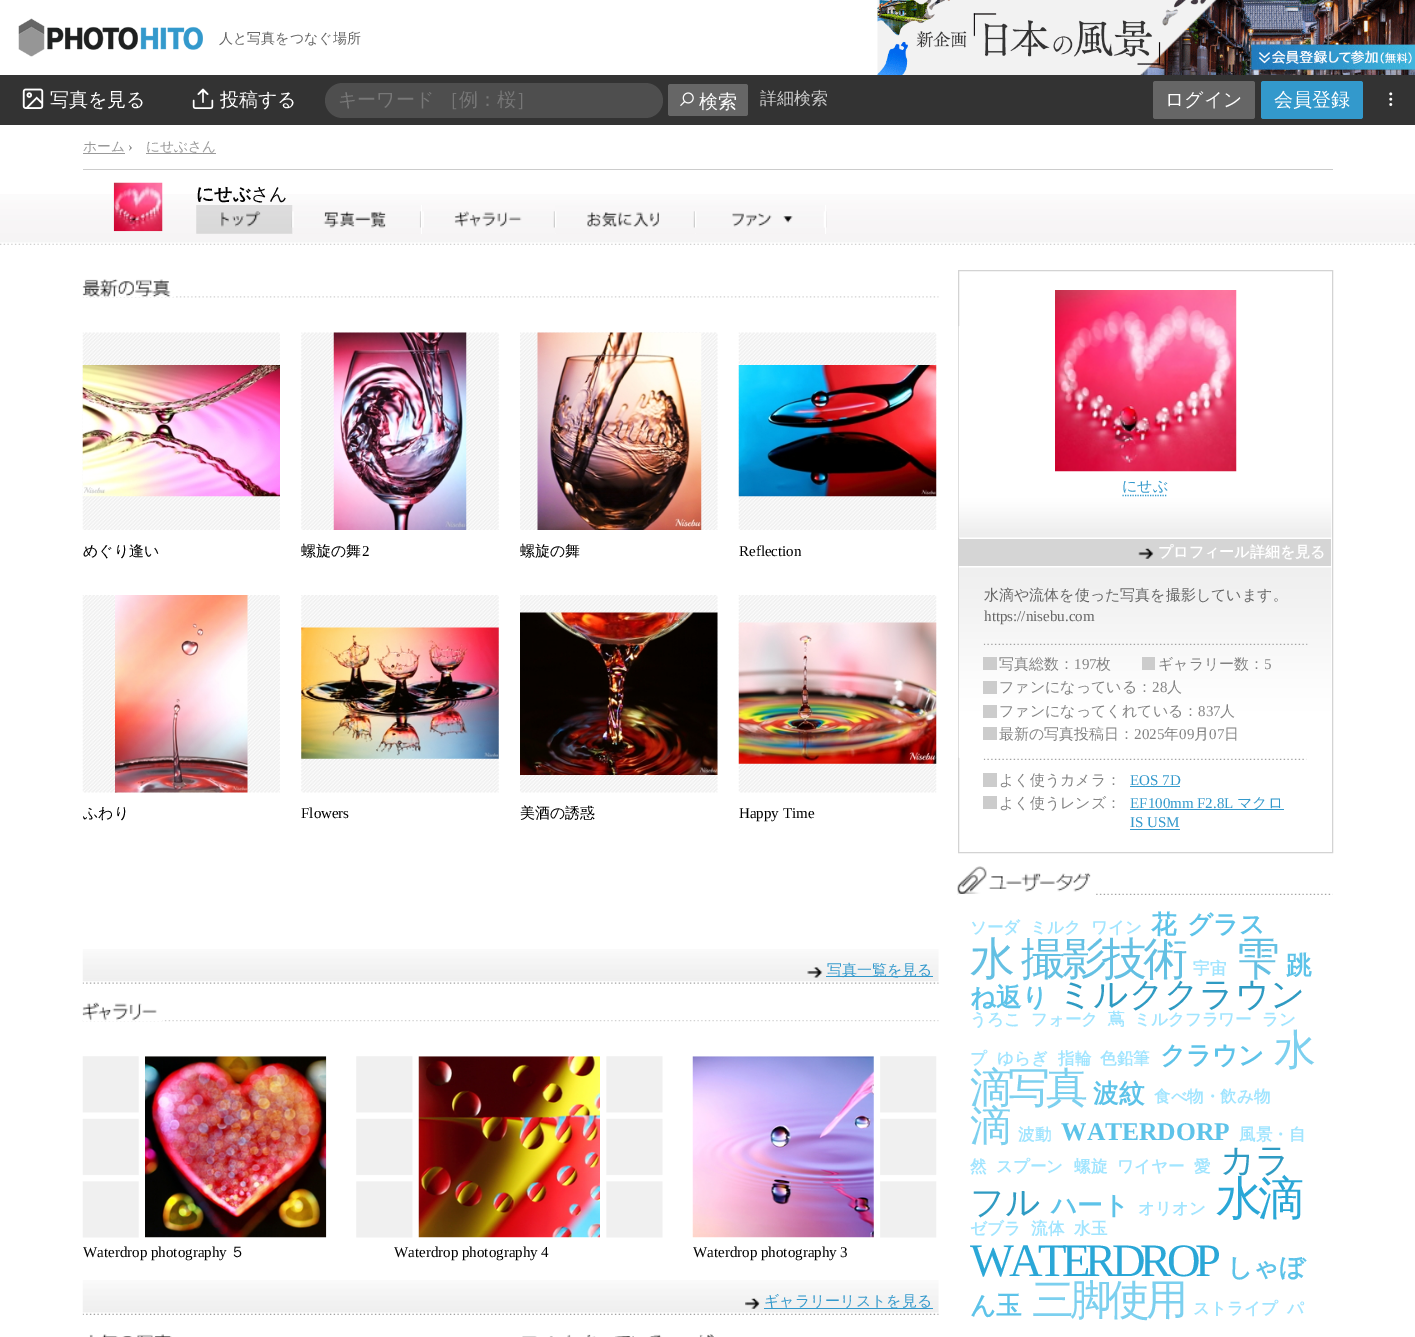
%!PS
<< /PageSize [1415 1337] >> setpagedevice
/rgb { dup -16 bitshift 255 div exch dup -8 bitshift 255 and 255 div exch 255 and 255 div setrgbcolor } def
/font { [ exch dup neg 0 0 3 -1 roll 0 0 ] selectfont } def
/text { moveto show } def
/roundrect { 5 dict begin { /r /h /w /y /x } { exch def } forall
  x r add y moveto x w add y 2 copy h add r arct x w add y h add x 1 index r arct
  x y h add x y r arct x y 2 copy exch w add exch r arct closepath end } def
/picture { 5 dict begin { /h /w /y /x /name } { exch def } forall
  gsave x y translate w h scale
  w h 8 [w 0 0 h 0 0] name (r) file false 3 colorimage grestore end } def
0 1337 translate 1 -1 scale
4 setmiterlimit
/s1 { /WenQuanYiZenHei-Medium 14 font 16#666666 rgb } def
/s2 { /WenQuanYiZenHei-Medium 19 font 16#FFFFFF rgb } def
/s3 { /WenQuanYiZenHei-Medium 19 font 16#777777 rgb } def
/s4 { /WenQuanYiZenHei-Medium 17 font 16#CCCCCC rgb } def
/s5 { /WenQuanYiZenHei-Medium 13.75 font 16#999999 rgb } def
/s6 { /LiberationSerif-Regular 13.75 font 16#777777 rgb } def
/s7 { /WenQuanYiZenHei-Bold 18 font 16#000000 rgb } def
/s8 { /WenQuanYiZenHei-Medium 18 font 16#000000 rgb } def
/s9 { /WenQuanYiZenHei-Medium 15 font 16#000000 rgb } def
/s10 { /LiberationSerif-Regular 15 font 16#000000 rgb } def
/s11 { /WenQuanYiZenHei-Medium 15 font 16#3399CC rgb } def
/s12 { /WenQuanYiZenHei-Bold 15 font 16#FFFFFF rgb } def
/s13 { /WenQuanYiZenHei-Medium 15 font 16#666666 rgb } def
/s14 { /LiberationSerif-Regular 15 font 16#666666 rgb } def
/s15 { /WenQuanYiZenHei-Medium 15 font 16#838383 rgb } def
/s16 { /LiberationSerif-Regular 15 font 16#838383 rgb } def
/s17 { /LiberationSerif-Regular 15 font 16#3399CC rgb } def
/s18 { /WenQuanYiZenHei-Bold 16.5 font 16#A1E5FF rgb } def
/s19 { /WenQuanYiZenHei-Bold 25.5 font 16#5DC3E9 rgb } def
/s20 { /WenQuanYiZenHei-Medium 34.5 font 16#2F9BC3 rgb } def
/s21 { /LiberationSerif-Bold 25.5 font 16#5DC3E9 rgb } def
16#FFFFFF rgb
0 0 1415 1337 rectfill
(pic1.raw) 18 18 185 39 picture
s1
(人と写真をつなぐ場所) 219 43 text
(pic2.raw) 877 0 538 75 picture
16#333333 rgb
0 75 1415 50 rectfill
(pic3.raw) 22 88 22 21 picture
s2
(写真を見る) 50 106 text
(pic4.raw) 192 88 22 21 picture
(投稿する) 220 106 text
16#4E4E4E rgb
325 83 338 35 17.5 roundrect fill
s3
(キーワード ［例：桜］) 338 106 text
16#666666 rgb
668 84 80 32 2.5 roundrect fill
(pic5.raw) 680 92 14 14 picture
s2
(検索) 699 108 text
s4
(詳細検索) 760 104 text
16#666666 rgb
1153 81 102 38 2.5 roundrect fill
s2
(ログイン) 1165 106 text
16#3399CC rgb
1261 81 102 38 2.5 roundrect fill
s2
(会員登録) 1274 106 text
(pic6.raw) 1389 92 4 14 picture
16#CCCCCC rgb
83 169 1250 1 rectfill
s5
(ホーム) 83 151 text
83 153 42 1 rectfill
s6
(›) 128 151 text
s5
(にせぶさん) 146 151 text
146 153 70 1 rectfill
(pic7.raw) 0 194 1415 51 picture
(pic8.raw) 113 182 50 50 picture
s7
(にせぶ) 196 200 text
s8
(さん) 251 200 text
(pic9.raw) 196 205 98 29 picture
(pic10.raw) 292 205 131 29 picture
(pic11.raw) 292 205 1 29 picture
16#FFFFFF rgb
421 205 1 29 rectfill
(pic12.raw) 423 211 132 17 picture
(pic13.raw) 555 205 140 29 picture
(pic14.raw) 695 205 130 29 picture
(pic15.raw) 826 211 1 17 picture
825 205 1 29 rectfill
(pic16.raw) 82 949 857 35 picture
(pic17.raw) 82 296 857 2 picture
(pic18.raw) 82 279 92 19 picture
(pic19.raw) 82 332 198 198 picture
(pic20.raw) 82 365 198 132 picture
s9
(めぐり逢い) 83 556 text
(pic21.raw) 301 332 198 198 picture
(pic22.raw) 333 332 134 198 picture
(螺旋の舞) 301 556 text
s10
(2) 362 556 text
(pic23.raw) 520 332 198 198 picture
(pic24.raw) 537 332 165 198 picture
s9
(螺旋の舞) 520 556 text
(pic25.raw) 738 332 199 198 picture
(pic26.raw) 738 365 199 132 picture
s10
(Reflection) 739 556 text
(pic27.raw) 82 595 198 198 picture
(pic28.raw) 115 595 133 198 picture
s9
(ふわり) 83 818 text
(pic29.raw) 301 595 198 198 picture
(pic30.raw) 301 627 198 132 picture
s10
(Flowers) 301 818 text
(pic31.raw) 520 595 198 198 picture
(pic32.raw) 520 612 198 163 picture
s9
(美酒の誘惑) 520 818 text
(pic33.raw) 738 595 199 198 picture
(pic34.raw) 738 622 199 142 picture
s10
(Happy Time) 739 818 text
(pic35.raw) 807 967 16 11 picture
16#3399CC rgb
826 976 107 1 rectfill
s11
(写真一覧を見る) 827 975 text
(pic36.raw) 82 1280 857 35 picture
(pic37.raw) 82 1020 857 2 picture
(pic38.raw) 82 1002 81 19 picture
(pic39.raw) 270 1056 57 182 picture
(pic40.raw) 82 1056 57 182 picture
(pic41.raw) 145 1056 182 182 picture
s10
(Waterdrop photography) 83 1257 text
s9
(５) 230 1257 text
(pic42.raw) 606 1056 57 182 picture
(pic43.raw) 356 1056 57 182 picture
(pic44.raw) 418 1056 182 182 picture
s10
(Waterdrop photography 4) 394 1257 text
(pic39.raw) 880 1056 57 182 picture
(pic45.raw) 692 1056 182 182 picture
(Waterdrop photography 3) 693 1257 text
(pic46.raw) 745 1298 15 11 picture
16#3399CC rgb
764 1308 169 1 rectfill
s11
(ギャラリーリストを見る) 764 1306 text
(pic47.raw) 89 1334 83 3 picture
(pic48.raw) 522 1334 192 3 picture
16#D3D3D3 rgb
958.5 270.5 374 582 rectstroke
(pic49.raw) 958 326 374 212 picture
(pic50.raw) 1055 290 182 182 picture
s11
(にせぶ) 1122 491 text
1.2 setlinewidth
[1.25 1.25] 0 setdash
1122.5 495.5 moveto 1167.5 495.5 lineto stroke
16#D5D5D5 rgb
959 539 372 27 rectfill
(pic51.raw) 1138 548 16 11 picture
s12
(プロフィール詳細を見る) 1158 557 text
(pic52.raw) 958 566 374 192 picture
(pic53.raw) 983 643 325 2 picture
s13
(水滴や流体を使った写真を撮影しています。) 984 600 text
s14
(https://nisebu.com) 984 621 text
16#CCCCCC rgb
983 657 14 13 rectfill
s15
(写真総数：) 999 669 text
s16
(197) 1074 669 text
s15
(枚) 1096 669 text
16#CCCCCC rgb
1142 657 13 13 rectfill
s15
(ギャラリー数：) 1158 669 text
s16
(5) 1264 669 text
16#CCCCCC rgb
983 681 14 13 rectfill
s15
(ファンになっている：) 999 692 text
s16
(28) 1152 692 text
s15
(人) 1167 692 text
16#CCCCCC rgb
983 705 14 13 rectfill
s15
(ファンになってくれている：) 999 716 text
s16
(837) 1198 716 text
s15
(人) 1220 716 text
16#CCCCCC rgb
983 727 14 13 rectfill
s15
(最新の写真投稿日：) 999 739 text
s16
(2025) 1134 739 text
s15
(年) 1164 739 text
s16
(09) 1179 739 text
s15
(月) 1194 739 text
s16
(07) 1209 739 text
s15
(日) 1224 739 text
(pic54.raw) 983 758 324 2 picture
16#CCCCCC rgb
983 773 14 14 rectfill
s15
(よく使うカメラ：) 999 785 text
s17
(EOS 7D) 1130 785 text
1130 786 50 1 rectfill
16#CCCCCC rgb
983 796 14 13 rectfill
s15
(よく使うレンズ：) 999 808 text
s17
(EF100mm F2.8L) 1130 808 text
1130 809 154 1 rectfill
s11
(マクロ) 1237 808 text
s17
(IS USM) 1130 827 text
1130 829 50 1 rectfill
(pic55.raw) 957 893 376 2 picture
(pic56.raw) 957 866 137 29 picture
s18
(ソーダ) 970 933 text
(ミルク) 1030 933 text
(ワイン) 1091 933 text
s19
(花) 1151 933 text
(グラス) 1187 933 text
/WenQuanYiZenHei-Medium 45 font
16#64C0E3 rgb
970 974 moveto -4.5 0 (水) ashow
1021 974 moveto -4.5 0 (撮影技術) ashow
s18
(宇宙) 1193 974 text
/WenQuanYiZenHei-Medium 45 font
16#64C0E3 rgb
1235 974 moveto -4.5 0 (雫) ashow
s19
(跳) 1286 974 text
(ね返り) 970 1006 text
s20
(ミルククラウン) 1058 1006 text
s18
(うろこ) 970 1025 text
(フォーク) 1031 1025 text
(蔦) 1108 1025 text
(ミルクフラワー) 1134 1025 text
(ラン) 1262 1025 text
(プ) 970 1064 text
(ゆらぎ) 997 1064 text
(指輪) 1058 1064 text
(色鉛筆) 1100 1064 text
s19
(クラウン) 1160 1064 text
/WenQuanYiZenHei-Medium 42 font
16#7CD0EF rgb
1274 1064 moveto -4 0 (水) ashow
970 1102 moveto -4 0 (滴写真) ashow
s19
(波紋) 1093 1102 text
s18
(食べ物・飲み物) 1154 1102 text
/WenQuanYiZenHei-Medium 42 font
16#7CD0EF rgb
970 1140 moveto -4 0 (滴) ashow
s18
(波動) 1018 1140 text
s21
(WATERDORP) 1061 1140 text
s18
(風景・自) 1239 1140 text
(然) 970 1172 text
(スプーン) 996 1172 text
(螺旋) 1074 1172 text
(ワイヤー) 1117 1172 text
(愛) 1194 1172 text
s20
(カラ) 1220 1172 text
(フル) 970 1214 text
s19
(ハート) 1051 1214 text
s18
(オリオン) 1138 1214 text
/WenQuanYiZenHei-Medium 46.5 font
16#2AA7D7 rgb
1216 1214 moveto -4.75 0 (水滴) ashow
s18
(ゼブラ) 970 1234 text
(流体) 1031 1234 text
(水玉) 1074 1234 text
/LiberationSerif-Regular 46.5 font
16#2AA7D7 rgb
970 1276 moveto -4.75 0 (WATERDROP) ashow
s19
(しゃぼ) 1227 1276 text
(ん玉) 970 1314 text
/WenQuanYiZenHei-Medium 42 font
16#7CD0EF rgb
1032 1314 moveto -4 0 (三脚使用) ashow
s18
(ストライプ) 1193 1314 text
(パ) 1287 1314 text
showpage
